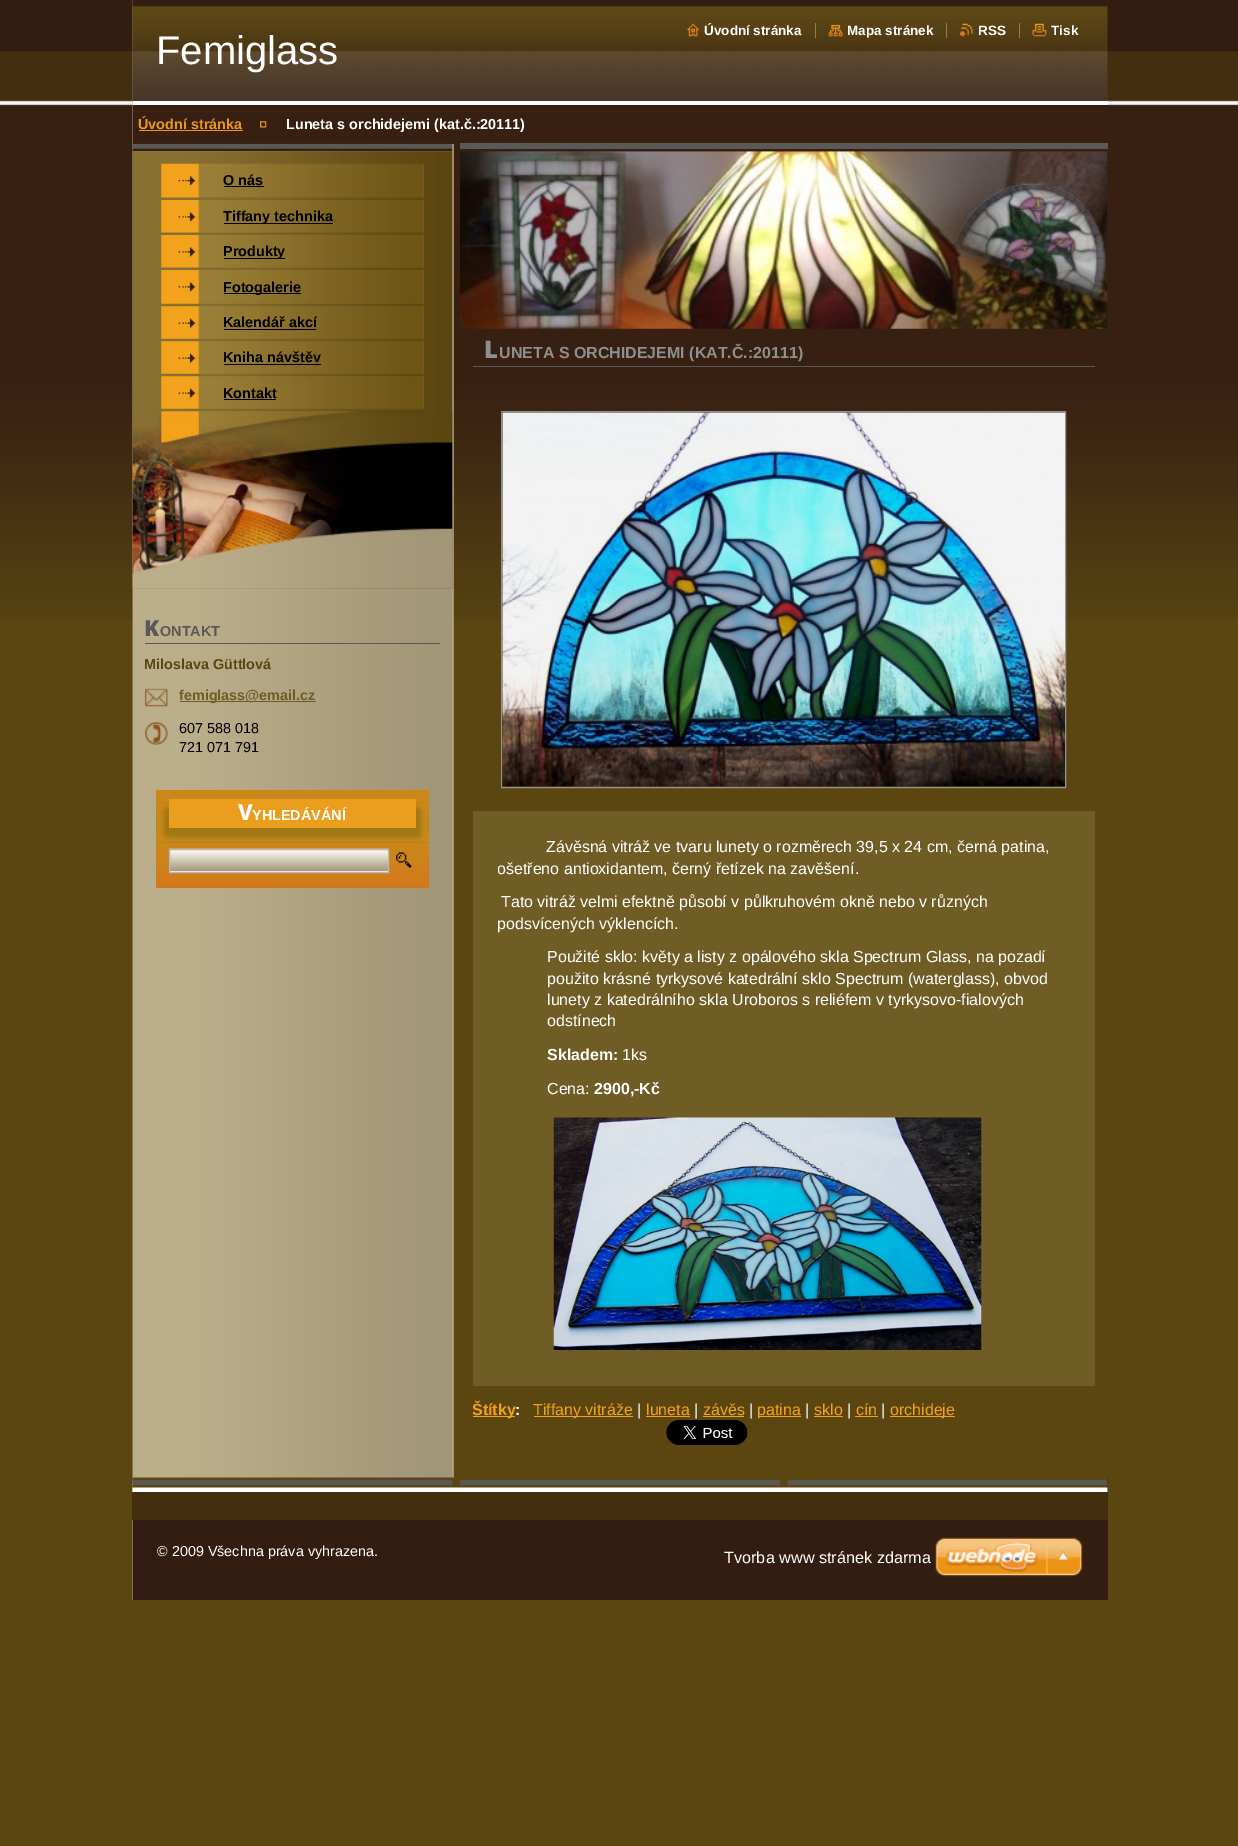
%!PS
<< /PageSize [1238 1846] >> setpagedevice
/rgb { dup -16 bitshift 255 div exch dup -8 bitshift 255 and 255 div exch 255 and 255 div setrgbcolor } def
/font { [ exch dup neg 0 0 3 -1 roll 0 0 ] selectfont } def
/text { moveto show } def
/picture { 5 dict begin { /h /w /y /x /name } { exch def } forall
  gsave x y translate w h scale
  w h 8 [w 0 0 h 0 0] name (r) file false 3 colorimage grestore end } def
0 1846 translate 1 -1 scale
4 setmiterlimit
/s1 { /LiberationSans-Bold 13.5 font 16#FFFFFF rgb } def
/s2 { /LiberationSans-Regular 40 font 16#FFFFFF rgb } def
/s3 { /LiberationSans-Bold 14.4 font 16#ED951C rgb } def
/s4 { /LiberationSans-Bold 14.4 font 16#FFFFFF rgb } def
/s5 { /LiberationSans-Bold 14.4 font 16#000000 rgb } def
/s6 { /NotoSans-Black 22 font 16#5C5859 rgb } def
/s7 { /LiberationSans-Bold 14.4 font 16#5C5859 rgb } def
/s8 { /LiberationSans-Bold 14.4 font 16#5B4611 rgb } def
/s9 { /LiberationSans-Bold 14.4 font 16#705D26 rgb } def
/s10 { /LiberationSans-Regular 14.4 font 16#000000 rgb } def
/s11 { /NotoSans-ExtraBold 22 font 16#FFFFFF rgb } def
/s12 { /NotoSans-Black 24 font 16#8F8F8F rgb } def
/s13 { /LiberationSans-Bold 16 font 16#8F8F8F rgb } def
/s14 { /LiberationSans-Regular 16 font 16#FFFFFF rgb } def
/s15 { /LiberationSans-Bold 16 font 16#FFFFFF rgb } def
/s16 { /LiberationSans-Bold 16 font 16#F3A21C rgb } def
/s17 { /LiberationSans-Regular 16 font 16#F3A21C rgb } def
/s18 { /LiberationSans-Regular 14.4 font 16#FFFFFF rgb } def
/s19 { /LiberationSans-Regular 16.25 font 16#FFFFFF rgb } def
16#5B4611 rgb
0 0 1238 1846 rectfill
(pic1.raw) 0 0 1238 620 picture
(pic2.raw) 132 0 322 1600 picture
(pic3.raw) 132 0 976 102 picture
16#FFFFFF rgb
133 101 975 4 rectfill
(pic4.raw) 687 23 12 14 picture
s1
(Úvodní stránka) 704 35 text
(pic5.raw) 828 24 15 13 picture
(Mapa stránek) 847 35 text
16#9A7E37 rgb
815 23 1 15 rectfill
(pic6.raw) 960 23 13 14 picture
s1
(RSS) 978 35 text
16#9A7E37 rgb
946 23 1 15 rectfill
(pic7.raw) 1032 23 15 14 picture
s1
(Tisk) 1051 35 text
16#9A7E37 rgb
1019 23 1 15 rectfill
s2
(Femiglass) 156 64 text
16#372012 rgb
133 105 975 36 rectfill
s3
(Úvodní stránka) 138 129 text
139 130 104 1 rectfill
(pic8.raw) 260 121 7 7 picture
s4
(Luneta s orchidejemi \(kat.č.:20111\)) 286 129 text
16#372012 rgb
133 141 321 3 rectfill
(pic9.raw) 132 143 321 9 picture
(pic10.raw) 132 151 321 438 picture
(pic11.raw) 161 163 263 35 picture
(pic12.raw) 178 176 18 9 picture
s5
(O nás) 223 185 text
224 186 40 1 rectfill
(pic13.raw) 161 200 263 33 picture
(pic14.raw) 178 212 18 10 picture
224 223 109 1 rectfill
(Tiffany technika) 223 221 text
(pic15.raw) 161 235 263 33 picture
(pic14.raw) 178 247 18 10 picture
224 258 61 1 rectfill
(Produkty) 223 256 text
(pic16.raw) 161 270 263 34 picture
(pic14.raw) 178 282 18 10 picture
224 293 77 1 rectfill
(Fotogalerie) 223 292 text
(pic17.raw) 161 306 263 33 picture
(pic18.raw) 178 318 18 10 picture
(Kalendář akcí) 223 327 text
224 329 92 1 rectfill
(pic19.raw) 161 341 263 33 picture
(pic18.raw) 178 353 18 10 picture
(Kniha návštěv) 223 362 text
224 364 97 1 rectfill
(pic20.raw) 161 376 263 33 picture
(pic18.raw) 178 388 18 10 picture
(Kontakt) 223 398 text
224 399 52 1 rectfill
(pic21.raw) 132 411 321 178 picture
16#5C5859 rgb
145 643 295 1 rectfill
s6
(K) 144 636 text
s7
(ONTAKT) 160 636 text
s8
(Miloslava Güttlová) 144 669 text
(pic22.raw) 145 688 23 19 picture
16#705D26 rgb
180 701 136 1 rectfill
(femiglass@email.cz) 179 700 text
(pic23.raw) 145 722 23 23 picture
s10
(607 588 018) 179 733 text
(721 071 791) 179 752 text
16#D7711D rgb
156 790 273 98 rectfill
(pic24.raw) 156 790 273 97 picture
16#A07814 rgb
156 803 273 40 rectfill
(pic25.raw) 156 802 273 41 picture
(pic26.raw) 156 802 273 10 picture
16#EB9E1D rgb
169 799 247 29 rectfill
s11
(V) 238 820 text
s4
(YHLEDÁVÁNÍ) 252 820 text
(pic27.raw) 156 833 273 10 picture
170 871 218 1 rectfill
(pic28.raw) 168 848 221 24 picture
16#B8B8B8 rgb
169.5 849.5 219 23 rectstroke
(pic29.raw) 396 852 16 16 picture
16#5B5858 rgb
460 143 648 6 rectfill
(pic30.raw) 460 151 648 178 picture
16#5A5859 rgb
473 366 622 1 rectfill
s12
(L) 484 358 text
s13
(UNETA S ORCHIDEJEMI \(KAT.Č.:20111\)) 499 358 text
16#939393 rgb
501.5 411.5 564 376 rectstroke
(pic31.raw) 502 412 563 375 picture
16#705D26 rgb
473 811 622 575 rectfill
s14
(Závěsná vitráž ve tvaru lunety o rozměrech 39,5 x 24 cm, černá patina,) 546 852 text
gsave
498 830 572 538 rectclip
(ošetřeno antioxidantem, černý řetízek na zavěšení.) 497 874 text
grestore
(Tato vitráž velmi efektně působí v půlkruhovém okně nebo v různých) 501 907 text
(podsvícených výklencích.) 497 929 text
(Použité sklo: květy a listy z opálového skla Spectrum Glass, na pozadí) 547 962 text
(použito krásné tyrkysové katedrální sklo Spectrum \(waterglass\), obvod) 547 984 text
(lunety z katedrálního skla Uroboros s reliéfem v tyrkysovo-fialových) 547 1005 text
(odstínech) 547 1026 text
s15
(Skladem:) 547 1060 text
s14
(1ks) 622 1060 text
(Cena:) 547 1094 text
s15
(2900,-Kč) 594 1094 text
(pic32.raw) 553 1117 429 233 picture
16#F3A21C rgb
473 1416 42 1 rectfill
gsave
473 380 622 1071 rectclip
(Štítky) 472 1415 text
grestore
s15
(:) 515 1415 text
16#F3A21C rgb
534 1416 99 1 rectfill
s17
(Tiffany vitráže) 533 1415 text
s14
(|) 637 1415 text
s17
(luneta) 646 1415 text
646 1416 44 1 rectfill
s14
(|) 694 1415 text
s17
(závěs) 703 1415 text
703 1416 41 1 rectfill
s14
(|) 749 1415 text
16#F3A21C rgb
758 1416 43 1 rectfill
(patina) 757 1415 text
s14
(|) 805 1415 text
s17
(sklo) 814 1415 text
814 1416 29 1 rectfill
s14
(|) 847 1415 text
s17
(cín) 856 1415 text
855 1416 23 1 rectfill
s14
(|) 881 1415 text
16#F3A21C rgb
890 1416 65 1 rectfill
(orchideje) 890 1415 text
(pic33.raw) 666 1420 82 25 picture
16#331D10 rgb
133 1478 975 122 rectfill
(pic34.raw) 132 1477 976 15 picture
16#442E10 rgb
132 1492 976 28 rectfill
s18
(© 2009 Všechna práva vyhrazena.) 157 1556 text
s19
(Tvorba www stránek zdarma) 724 1563 text
(pic35.raw) 935 1537 148 40 picture
showpage
